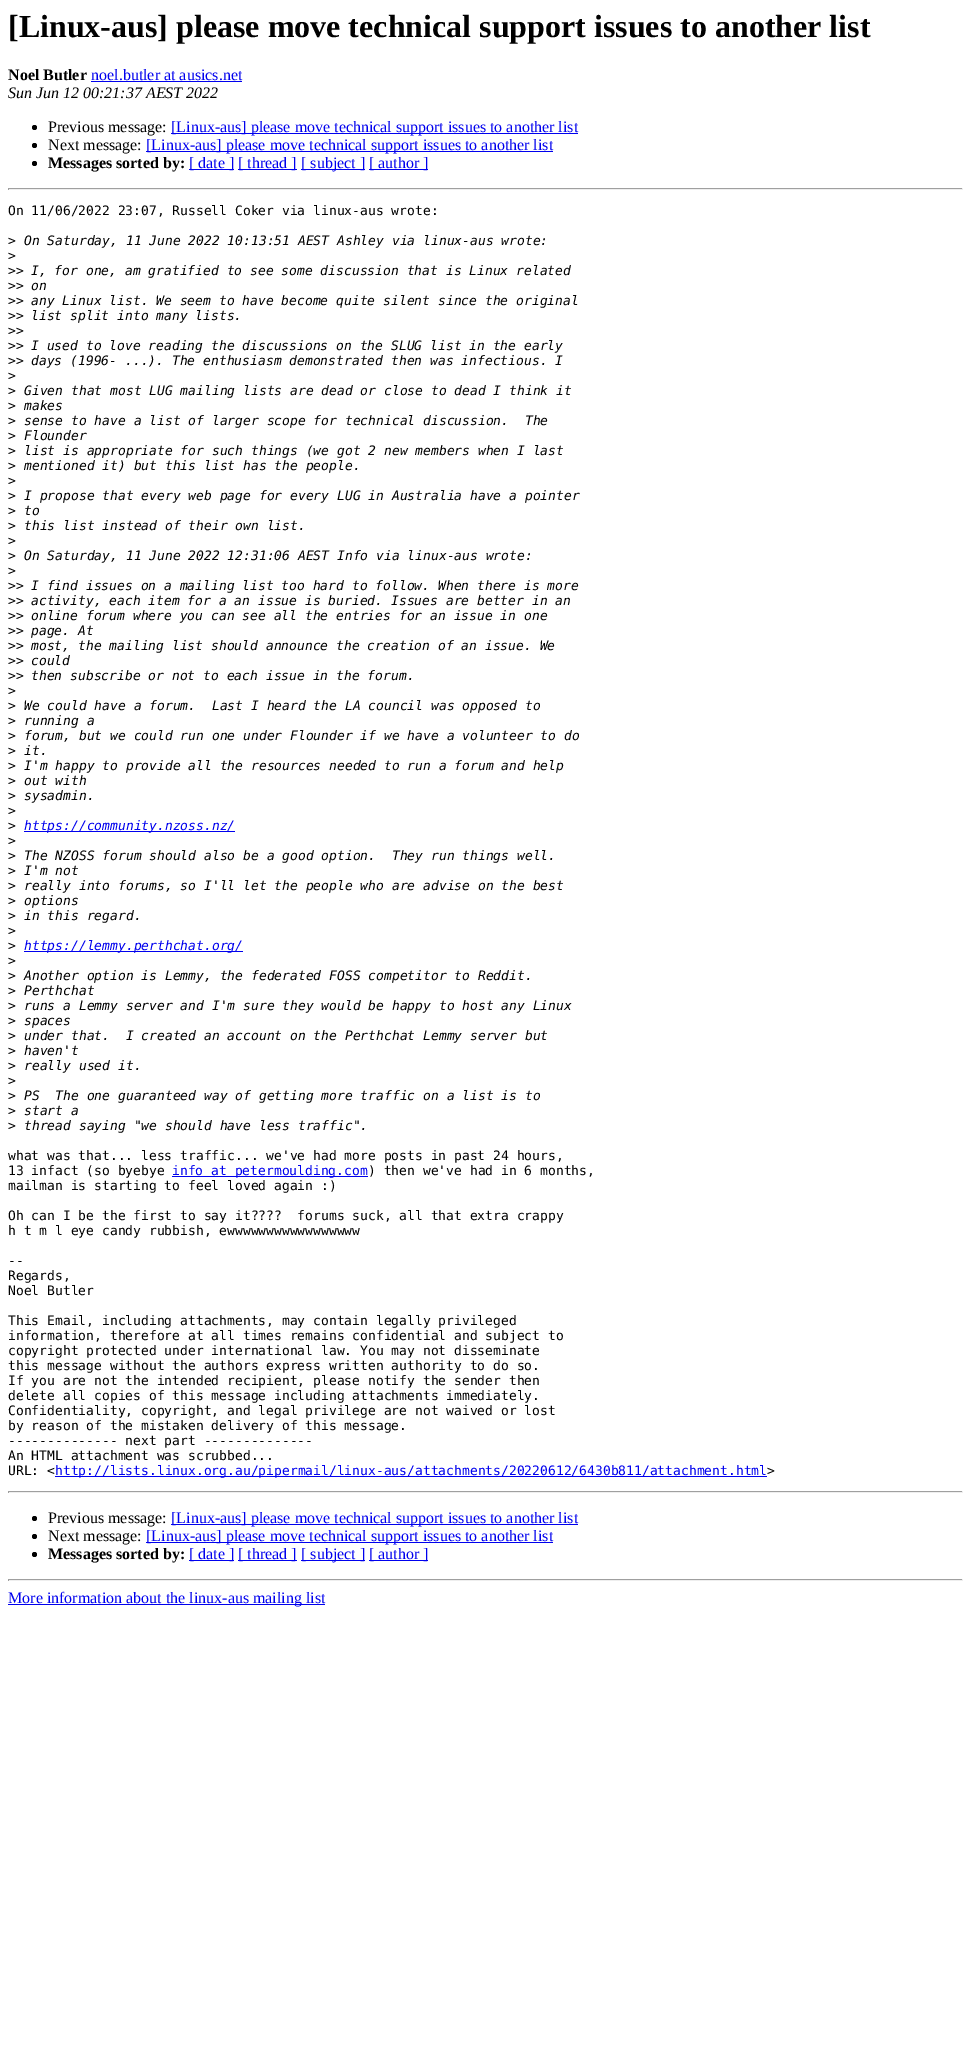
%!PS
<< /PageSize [971 2050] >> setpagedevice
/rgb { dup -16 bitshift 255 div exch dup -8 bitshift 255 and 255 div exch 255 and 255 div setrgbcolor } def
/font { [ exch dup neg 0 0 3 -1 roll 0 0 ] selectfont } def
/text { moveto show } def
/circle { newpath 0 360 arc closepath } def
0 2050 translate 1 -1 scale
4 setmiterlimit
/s1 { /LiberationSerif-Bold 32 font 16#000000 rgb } def
/s2 { /LiberationSerif-Bold 16 font 16#000000 rgb } def
/s3 { /LiberationSerif-Regular 16 font 16#0000EE rgb } def
/s4 { /LiberationSerif-Italic 16 font 16#000000 rgb } def
/s5 { /LiberationSerif-Regular 16 font 16#000000 rgb } def
/s6 { /DejaVuSansMono-Regular 13 font 16#000000 rgb } def
/s7 { /DejaVuSansMono-Italic 13 font 16#000000 rgb } def
/s8 { /DejaVuSansMono-Italic 13 font 16#0000EE rgb } def
/s9 { /DejaVuSansMono-Regular 13 font 16#0000EE rgb } def
16#FFFFFF rgb
0 0 971 2050 rectfill
s1
([Linux-aus] please move technical support issues to another list) 8 37 text
s2
(Noel Butler) 8 80 text
s3
(noel.butler at ausics.net) 91 80 text
91 81 151 1 rectfill
s4
(Sun Jun 12 00:21:37 AEST 2022) 8 98 text
34.5 127.5 2.5 circle fill
s5
(Previous message:) 48 132 text
16#0000EE rgb
171 133 407 1 rectfill
([Linux-aus] please move technical support issues to another list) 171 132 text
16#000000 rgb
34.5 145.5 2.5 circle fill
(Next message:) 48 150 text
16#0000EE rgb
146 151 407 1 rectfill
([Linux-aus] please move technical support issues to another list) 146 150 text
16#000000 rgb
34.5 163.5 2.5 circle fill
s2
(Messages sorted by:) 48 168 text
16#0000EE rgb
189 169 45 1 rectfill
s3
([ date ]) 189 168 text
238 169 59 1 rectfill
([ thread ]) 238 168 text
301 169 64 1 rectfill
([ subject ]) 301 168 text
369 169 59 1 rectfill
([ author ]) 369 168 text
16#9F9F9F rgb
8 188 955 1 rectfill
16#EEEEEE rgb
962 188 1 2 rectfill
8 189 955 1 rectfill
16#9F9F9F rgb
8 188 1 2 rectfill
s6
(On 11/06/2022 23:07, Russell Coker via linux-aus wrote:) 8 215 text
(>) 8 245 text
s7
(On Saturday, 11 June 2022 10:13:51 AEST Ashley via linux-aus wrote:) 24 245 text
s6
(>) 8 260 text
(>>) 8 275 text
s7
(I, for one, am gratified to see some discussion that is Linux related) 31 275 text
s6
(>>) 8 290 text
s7
(on) 31 290 text
s6
(>>) 8 305 text
s7
(any Linux list. We seem to have become quite silent since the original) 31 305 text
s6
(>>) 8 320 text
s7
(list split into many lists.) 31 320 text
s6
(>>) 8 335 text
(>>) 8 350 text
s7
(I used to love reading the discussions on the SLUG list in the early) 31 350 text
s6
(>>) 8 365 text
s7
(days \(1996- ...\). The enthusiasm demonstrated then was infectious. I) 31 365 text
s6
(>) 8 380 text
(>) 8 395 text
s7
(Given that most LUG mailing lists are dead or close to dead I think it) 24 395 text
s6
(>) 8 410 text
s7
(makes) 24 410 text
s6
(>) 8 425 text
s7
(sense to have a list of larger scope for technical discussion.  The) 24 425 text
s6
(>) 8 440 text
s7
(Flounder) 24 440 text
s6
(>) 8 455 text
s7
(list is appropriate for such things \(we got 2 new members when I last) 24 455 text
s6
(>) 8 470 text
s7
(mentioned it\) but this list has the people.) 24 470 text
s6
(>) 8 485 text
(>) 8 500 text
s7
(I propose that every web page for every LUG in Australia have a pointer) 24 500 text
s6
(>) 8 515 text
s7
(to) 24 515 text
s6
(>) 8 530 text
s7
(this list instead of their own list.) 24 530 text
s6
(>) 8 545 text
(>) 8 560 text
s7
(On Saturday, 11 June 2022 12:31:06 AEST Info via linux-aus wrote:) 24 560 text
s6
(>) 8 575 text
(>>) 8 590 text
s7
(I find issues on a mailing list too hard to follow. When there is more) 31 590 text
s6
(>>) 8 605 text
s7
(activity, each item for a an issue is buried. Issues are better in an) 31 605 text
s6
(>>) 8 620 text
s7
(online forum where you can see all the entries for an issue in one) 31 620 text
s6
(>>) 8 635 text
s7
(page. At) 31 635 text
s6
(>>) 8 650 text
s7
(most, the mailing list should announce the creation of an issue. We) 31 650 text
s6
(>>) 8 665 text
s7
(could) 31 665 text
s6
(>>) 8 680 text
s7
(then subscribe or not to each issue in the forum.) 31 680 text
s6
(>) 8 695 text
(>) 8 710 text
s7
(We could have a forum.  Last I heard the LA council was opposed to) 24 710 text
s6
(>) 8 725 text
s7
(running a) 24 725 text
s6
(>) 8 740 text
s7
(forum, but we could run one under Flounder if we have a volunteer to do) 24 740 text
s6
(>) 8 755 text
s7
(it.) 24 755 text
s6
(>) 8 770 text
s7
(I'm happy to provide all the resources needed to run a forum and help) 24 770 text
s6
(>) 8 785 text
s7
(out with) 24 785 text
s6
(>) 8 800 text
s7
(sysadmin.) 24 800 text
s6
(>) 8 815 text
(>) 8 830 text
16#0000EE rgb
24 831 211 1 rectfill
s8
(https://community.nzoss.nz/) 24 830 text
s6
(>) 8 845 text
(>) 8 860 text
s7
(The NZOSS forum should also be a good option.  They run things well.) 24 860 text
s6
(>) 8 875 text
s7
(I'm not) 24 875 text
s6
(>) 8 890 text
s7
(really into forums, so I'll let the people who are advise on the best) 24 890 text
s6
(>) 8 905 text
s7
(options) 24 905 text
s6
(>) 8 920 text
s7
(in this regard.) 24 920 text
s6
(>) 8 935 text
(>) 8 950 text
16#0000EE rgb
24 951 219 1 rectfill
s8
(https://lemmy.perthchat.org/) 24 950 text
s6
(>) 8 965 text
(>) 8 980 text
s7
(Another option is Lemmy, the federated FOSS competitor to Reddit.) 24 980 text
s6
(>) 8 995 text
s7
(Perthchat) 24 995 text
s6
(>) 8 1010 text
s7
(runs a Lemmy server and I'm sure they would be happy to host any Linux) 24 1010 text
s6
(>) 8 1025 text
s7
(spaces) 24 1025 text
s6
(>) 8 1040 text
s7
(under that.  I created an account on the Perthchat Lemmy server but) 24 1040 text
s6
(>) 8 1055 text
s7
(haven't) 24 1055 text
s6
(>) 8 1070 text
s7
(really used it.) 24 1070 text
s6
(>) 8 1085 text
(>) 8 1100 text
s7
(PS  The one guaranteed way of getting more traffic on a list is to) 24 1100 text
s6
(>) 8 1115 text
s7
(start a) 24 1115 text
s6
(>) 8 1130 text
s7
(thread saying "we should have less traffic".) 24 1130 text
s6
(what was that... less traffic... we've had more posts in past 24 hours,) 8 1160 text
(13 infact \(so byebye) 8 1175 text
16#0000EE rgb
172 1176 196 1 rectfill
(info at petermoulding.com) 172 1175 text
s6
(\) then we've had in 6 months,) 368 1175 text
(mailman is starting to feel loved again :\)) 8 1190 text
(Oh can I be the first to say it????  forums suck, all that extra crappy) 8 1220 text
(h t m l eye candy rubbish, ewwwwwwwwwwwwwwwww) 8 1235 text
(--) 8 1265 text
(Regards,) 8 1280 text
(Noel Butler) 8 1295 text
(This Email, including attachments, may contain legally privileged) 8 1325 text
(information, therefore at all times remains confidential and subject to) 8 1340 text
(copyright protected under international law. You may not disseminate) 8 1355 text
(this message without the authors express written authority to do so.) 8 1370 text
(If you are not the intended recipient, please notify the sender then) 8 1385 text
(delete all copies of this message including attachments immediately.) 8 1400 text
(Confidentiality, copyright, and legal privilege are not waived or lost) 8 1415 text
(by reason of the mistaken delivery of this message.) 8 1430 text
(-------------- next part --------------) 8 1445 text
(An HTML attachment was scrubbed...) 8 1460 text
(URL: <) 8 1475 text
16#0000EE rgb
55 1476 712 1 rectfill
(http://lists.linux.org.au/pipermail/linux-aus/attachments/20220612/6430b811/attachment.html) 55 1475 text
s6
(>) 767 1475 text
16#9F9F9F rgb
8 1491 955 1 rectfill
16#EEEEEE rgb
962 1491 1 2 rectfill
8 1492 955 1 rectfill
16#9F9F9F rgb
8 1491 1 2 rectfill
16#000000 rgb
34.5 1518.5 2.5 circle fill
s5
(Previous message:) 48 1523 text
16#0000EE rgb
171 1524 407 1 rectfill
([Linux-aus] please move technical support issues to another list) 171 1523 text
16#000000 rgb
34.5 1536.5 2.5 circle fill
(Next message:) 48 1541 text
16#0000EE rgb
146 1542 407 1 rectfill
([Linux-aus] please move technical support issues to another list) 146 1541 text
16#000000 rgb
34.5 1554.5 2.5 circle fill
s2
(Messages sorted by:) 48 1559 text
16#0000EE rgb
189 1560 45 1 rectfill
s3
([ date ]) 189 1559 text
238 1560 59 1 rectfill
([ thread ]) 238 1559 text
301 1560 64 1 rectfill
([ subject ]) 301 1559 text
369 1560 59 1 rectfill
([ author ]) 369 1559 text
16#9F9F9F rgb
8 1579 955 1 rectfill
16#EEEEEE rgb
962 1579 1 2 rectfill
8 1580 955 1 rectfill
16#9F9F9F rgb
8 1579 1 2 rectfill
16#0000EE rgb
8 1604 317 1 rectfill
(More information about the linux-aus mailing list) 8 1603 text
showpage
